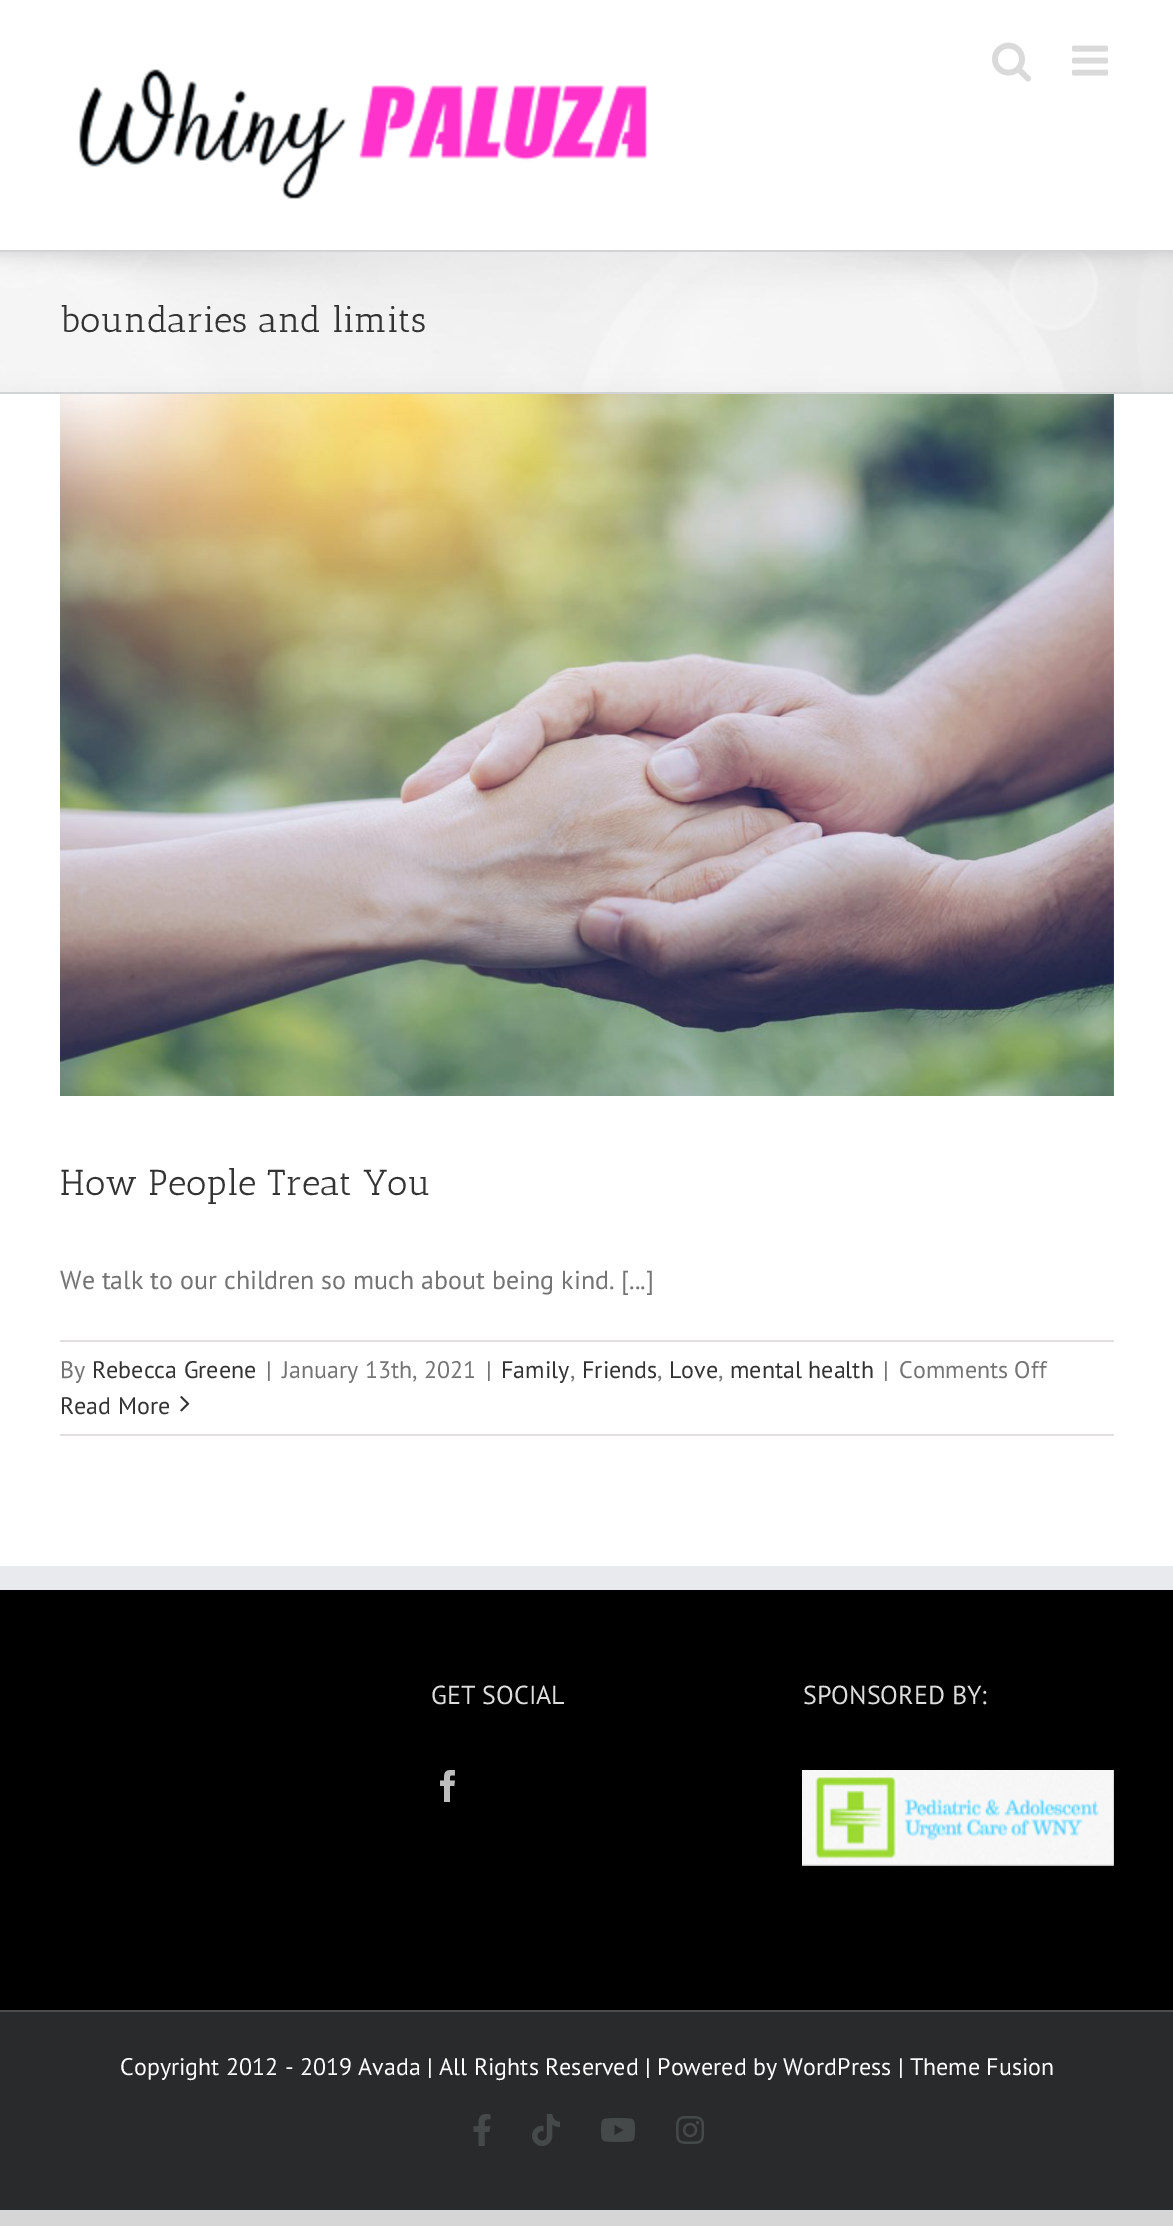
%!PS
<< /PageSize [1173 2226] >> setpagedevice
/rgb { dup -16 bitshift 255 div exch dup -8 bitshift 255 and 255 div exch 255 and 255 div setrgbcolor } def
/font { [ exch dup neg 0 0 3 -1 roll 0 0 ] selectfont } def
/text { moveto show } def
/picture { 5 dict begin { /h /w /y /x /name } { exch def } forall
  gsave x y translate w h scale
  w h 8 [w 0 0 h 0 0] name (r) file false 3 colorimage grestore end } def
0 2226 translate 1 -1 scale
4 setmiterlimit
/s1 { /AnticSlab-Regular 36 font 16#333333 rgb } def
/s2 { /PTSans-Regular 26 font 16#747474 rgb } def
/s3 { /PTSans-Regular 24 font 16#747474 rgb } def
/s4 { /PTSans-Regular 24 font 16#333333 rgb } def
/s5 { /PTSans-Regular 26 font 16#DDDDDD rgb } def
/s6 { /PTSans-Regular 24 font 16#FFFFFF rgb } def
16#D7D6D6 rgb
0 0 1173 2226 rectfill
16#FFFFFF rgb
0 0 1173 1566 rectfill
(pic1.raw) 992 42 39 40 picture
(pic2.raw) 1072 45 36 31 picture
(pic3.raw) 79 69 568 130 picture
16#F6F6F6 rgb
0 252 1173 140 rectfill
(pic4.raw) 0 252 1173 140 picture
16#D2D3D4 rgb
0 250 1173 2 rectfill
0 392 1173 2 rectfill
s1
(boundaries and limits) 60 332 text
(pic5.raw) 60 394 1054 702 picture
(How People Treat You) 60 1195 text
s2
(We talk to our children so much about being kind. [...]) 60 1289 text
16#E0DEDE rgb
60 1340 1054 2 rectfill
60 1434 1054 2 rectfill
s3
(By) 60 1378 text
s4
(Rebecca Greene) 92 1378 text
s3
(|) 266 1378 text
(January 13th, 2021) 282 1378 text
(|) 486 1378 text
s4
(Family) 501 1378 text
s3
(,) 570 1378 text
s4
(Friends) 582 1378 text
s3
(,) 657 1378 text
s4
(Love) 669 1378 text
s3
(,) 718 1378 text
s4
(mental health) 730 1378 text
s3
(|) 883 1378 text
(Comments Off) 899 1378 text
s4
(Read More) 60 1414 text
(pic6.raw) 180 1396 10 16 picture
16#000000 rgb
0 1590 1173 420 rectfill
16#E9EAEE rgb
0 1566 1173 24 rectfill
s5
(GET SOCIAL) 431 1704 text
(pic7.raw) 440 1770 15 32 picture
(SPONSORED BY:) 803 1704 text
(pic8.raw) 802 1770 312 96 picture
16#282A2B rgb
0 2012 1173 198 rectfill
16#4B4C4D rgb
0 2010 1173 2 rectfill
s6
(Copyright 2012 - 2019 Avada | All Rights Reserved | Powered by WordPress | Theme Fusion) 120 2075 text
(pic9.raw) 473 2114 18 32 picture
(pic10.raw) 532 2114 28 32 picture
(pic11.raw) 601 2118 34 24 picture
(pic12.raw) 676 2116 28 28 picture
showpage
